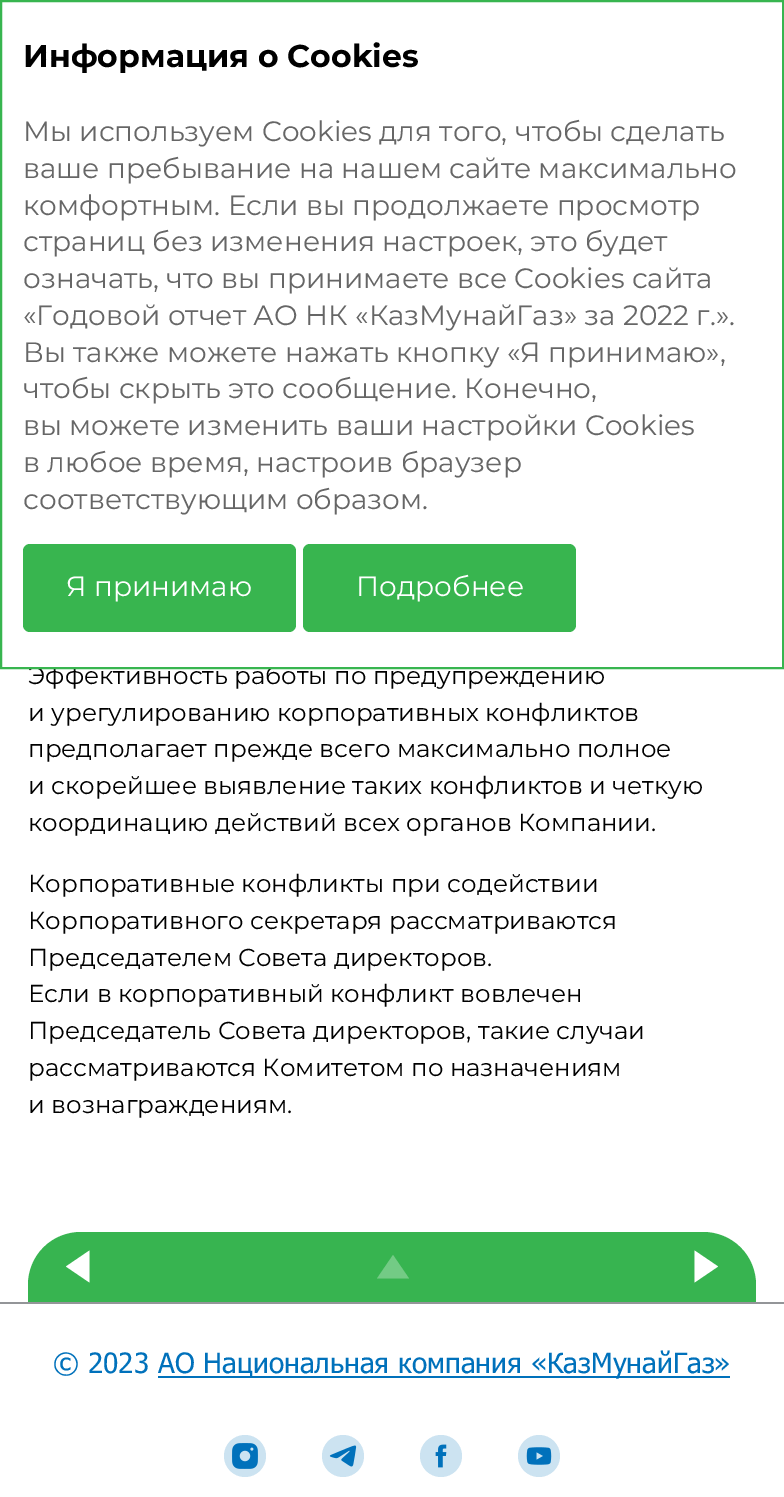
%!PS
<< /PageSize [784 1497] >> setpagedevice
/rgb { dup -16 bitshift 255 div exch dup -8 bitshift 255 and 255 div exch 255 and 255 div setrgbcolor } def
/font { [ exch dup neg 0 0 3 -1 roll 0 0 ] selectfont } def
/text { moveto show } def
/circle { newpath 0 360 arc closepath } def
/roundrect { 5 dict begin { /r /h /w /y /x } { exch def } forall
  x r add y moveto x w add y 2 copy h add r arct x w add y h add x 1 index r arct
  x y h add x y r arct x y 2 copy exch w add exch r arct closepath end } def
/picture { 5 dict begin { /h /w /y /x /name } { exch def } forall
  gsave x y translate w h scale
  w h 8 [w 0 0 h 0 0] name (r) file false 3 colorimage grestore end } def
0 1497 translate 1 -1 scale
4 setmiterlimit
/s1 { /Montserrat-Regular 24.5 font 16#000000 rgb } def
/s2 { /Montserrat-Bold 31.5 font 16#000000 rgb } def
/s3 { /Montserrat-Regular 28 font 16#666666 rgb } def
/s4 { /Montserrat-Regular 28 font 16#FFFFFF rgb } def
/s5 { /Tahoma-Regular 28 font 16#0071BB rgb } def
16#FFFFFF rgb
0 0 784 1497 rectfill
s1
(Эффективность работы по предупреждению) 28 684 text
16#FFFFFF rgb
33 665 247 2 rectfill
16#38B54F rgb
2 setlinewidth
1 1 782 667 rectstroke
s2
(Информация о Cookies) 23 67 text
s3
(Мы используем Cookies для того, чтобы сделать) 23 141 text
(ваше пребывание на нашем сайте максимально) 23 178 text
(комфортным. Если вы продолжаете просмотр) 23 215 text
(страниц без изменения настроек, это будет) 23 251 text
(означать, что вы принимаете все Cookies сайта) 23 288 text
(«Годовой отчет АО НК «КазМунайГаз» за 2022 г.».) 23 325 text
(Вы также можете нажать кнопку «Я принимаю»,) 23 362 text
(чтобы скрыть это сообщение. Конечно,) 23 398 text
(вы можете изменить ваши настройки Cookies) 23 435 text
(в любое время, настроив браузер) 23 472 text
(соответствующим образом.) 23 509 text
16#38B54F rgb
23 544 273 88 7 roundrect fill
s4
(Я принимаю) 66 596 text
16#38B54F rgb
303 544 273 88 7 roundrect fill
s4
(Подробнее) 356 596 text
s1
(и урегулированию корпоративных конфликтов) 28 721 text
(предполагает прежде всего максимально полное) 28 757 text
(и скорейшее выявление таких конфликтов и четкую) 28 794 text
(координацию действий всех органов Компании.) 28 831 text
(Корпоративные конфликты при содействии) 28 892 text
(Корпоративного секретаря рассматриваются) 28 929 text
(Председателем Совета директоров.) 28 966 text
(Если в корпоративный конфликт вовлечен) 28 1002 text
(Председатель Совета директоров, такие случаи) 28 1039 text
(рассматриваются Комитетом по назначениям) 28 1076 text
(и вознаграждениям.) 28 1113 text
16#37B450 rgb
81 1232 moveto 277 1232 lineto 277 1302 lineto 28 1302 lineto 28 1285 lineto 28 1255.5 51.5 1232 81 1232 curveto closepath fill
16#FFFFFF rgb
66 1266.5 moveto 89.5 1250.5 lineto 89.5 1282.5 lineto closepath fill
16#37B450 rgb
277 1232 231 70 rectfill
16#73CB85 rgb
393 1255 moveto 409 1278.5 lineto 377 1278.5 lineto closepath fill
16#37B450 rgb
508 1232 moveto 703 1232 lineto 732.5 1232 756 1255.5 756 1285 curveto 756 1302 lineto 508 1302 lineto closepath fill
16#FFFFFF rgb
718 1266.5 moveto 694.5 1282.5 lineto 694.5 1250.5 lineto closepath fill
16#939598 rgb
0 1302 784 2 rectfill
s5
(© 2023) 53 1373 text
158 1376 572 2 rectfill
(АО Национальная компания «КазМунайГаз») 158 1373 text
16#CCE3F1 rgb
245 1456 21 circle fill
(pic1.raw) 232 1443 26 26 picture
343 1456 21 circle fill
(pic2.raw) 329 1445 28 22 picture
441 1456 21 circle fill
(pic3.raw) 435 1444 12 24 picture
539 1456 21 circle fill
(pic4.raw) 526 1447 26 18 picture
showpage
